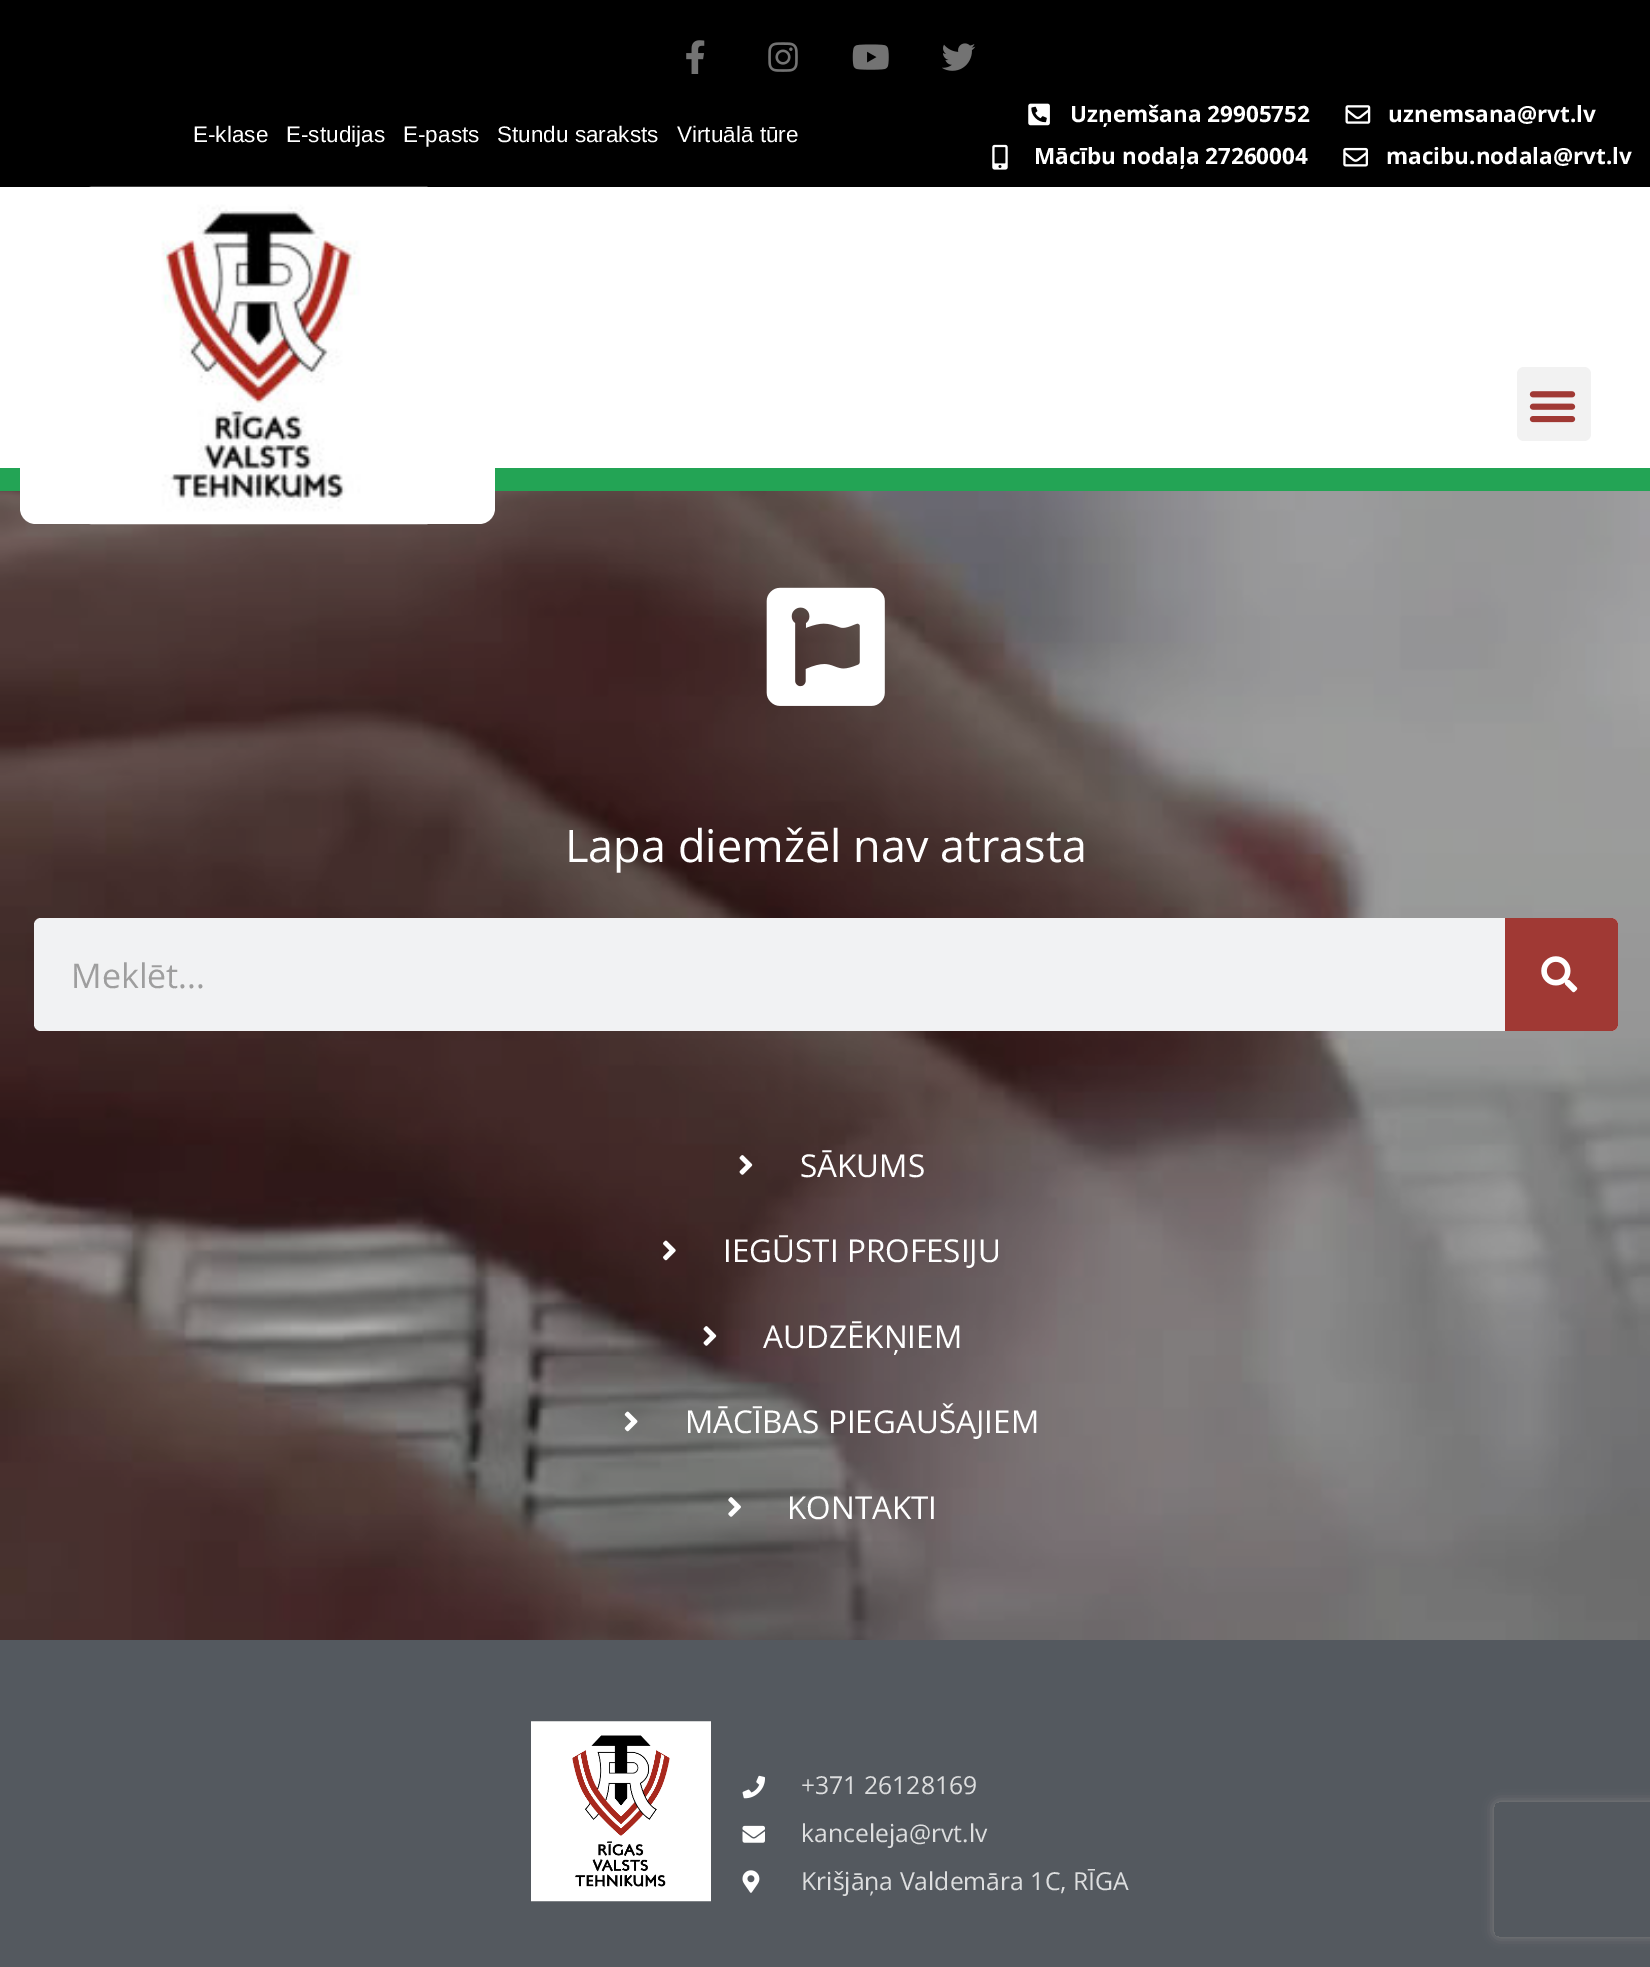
%!PS
<< /PageSize [1650 1967] /PageUsesTransparency true >> setpagedevice
/rgb { dup -16 bitshift 255 div exch dup -8 bitshift 255 and 255 div exch 255 and 255 div setrgbcolor } def
/font { [ exch dup neg 0 0 3 -1 roll 0 0 ] selectfont } def
/text { moveto show } def
/alpha { dup .setfillconstantalpha .setstrokeconstantalpha } def
/roundrect { 5 dict begin { /r /h /w /y /x } { exch def } forall
  x r add y moveto x w add y 2 copy h add r arct x w add y h add x 1 index r arct
  x y h add x y r arct x y 2 copy exch w add exch r arct closepath end } def
/shadow { 12 dict begin { /a /b /q /h /w /y /x } { exch def } forall gsave /was 0 def
  9 -2 -9 { dup b mul 4 div /e exch def 1 sub .425 mul 2.718 exch exp 1 add a .99 .min exch div /now exch def
    1 1 now sub 1 was sub div sub alpha /was now def
    w h .min e 2 mul add 0 gt { x e sub y e sub w e 2 mul add h e 2 mul add
      q e add b .6 mul add w h .min 2 div e add .min 0 .max roundrect fill } if } for grestore end } def
/picture { 5 dict begin { /h /w /y /x /name } { exch def } forall
  gsave x y translate w h scale
  w h 8 [w 0 0 h 0 0] name (r) file false 3 colorimage grestore end } def
0 .pushpdf14devicefilter
0 1967 translate 1 -1 scale
4 setmiterlimit
/s1 { /LiberationSans-Regular 22.5 font 16#FFFFFF rgb } def
/s2 { /OpenSans-Bold 22.5 font 16#FFFFFF rgb } def
/s3 { /OpenSans-Regular 45 font 16#FFFFFF rgb } def
/s4 { /OpenSans-Regular 34 font 16#9E9E9E rgb } def
/s5 { /OpenSans-Regular 31.5 font 16#FFFFFF rgb } def
/s6 { /OpenSans-Regular 24.75 font 16#DDDEDF rgb } def
16#FFFFFF rgb
0 0 1650 1967 rectfill
16#000000 rgb
0 0 1650 187 rectfill
(pic1.raw) 686 40 19 34 picture
(pic2.raw) 768 42 30 30 picture
(pic3.raw) 852 44 37 26 picture
(pic4.raw) 942 43 34 28 picture
s1
(E-klase) 193 142 text
(E-studijas) 286 142 text
(E-pasts) 403 142 text
(Stundu saraksts) 497 142 text
(Virtuālā tūre) 677 142 text
(pic5.raw) 1028 103 22 23 picture
s2
(Uzņemšana 29905752) 1070 122 text
(pic6.raw) 1345 105 26 19 picture
(uznemsana@rvt.lv) 1388 122 text
(pic7.raw) 992 144 16 26 picture
(Mācību nodaļa 27260004) 1034 164 text
(pic8.raw) 1343 147 25 20 picture
(macibu.nodala@rvt.lv) 1386 164 text
16#23A455 rgb
0 468 1650 23 rectfill
(pic11.raw) 0 491 1650 1149 picture
16#FFFFFF rgb
20 187 moveto 495 187 lineto 495 508 lineto 495 517 488 524 479 524 curveto 36 524 lineto 27 524 20 517 20 508 curveto closepath fill
(pic9.raw) 89 186 339 339 picture
16#F2F2F2 rgb
1517 367 74 74 7 roundrect fill
(pic10.raw) 1529 391 47 32 picture
(pic12.raw) 766 587 119 119 picture
s3
(Lapa diemžēl nav atrasta) 565 862 text
16#F1F2F3 rgb
34 918 1584 113 7 roundrect fill
s4
(Meklēt...) 71 988 text
16#A03934 rgb
1505 918 moveto 1611 918 lineto 1615 918 1618 921 1618 925 curveto 1618 1024 lineto 1618 1028 1615 1031 1611 1031 curveto 1505 1031 lineto closepath fill
(pic13.raw) 1541 956 37 37 picture
(pic14.raw) 739 1155 14 20 picture
s5
(SĀKUMS) 800 1177 text
(pic15.raw) 663 1240 13 21 picture
(IEGŪSTI PROFESIJU) 723 1262 text
(pic16.raw) 703 1326 14 20 picture
(AUDZĒKŅIEM) 763 1348 text
(pic17.raw) 624 1411 14 21 picture
(MĀCĪBAS PIEGAUŠAJIEM) 685 1433 text
(pic18.raw) 728 1497 13 20 picture
(KONTAKTI) 787 1519 text
16#54595F rgb
0 1640 1650 327 rectfill
(pic19.raw) 531 1721 180 181 picture
(pic20.raw) 742 1775 23 24 picture
s6
(+371 26128169) 801 1794 text
(pic21.raw) 742 1825 23 18 picture
(kanceleja@rvt.lv) 801 1842 text
(pic22.raw) 742 1870 18 23 picture
(Krišjāņa Valdemāra 1C, RĪGA) 801 1890 text
gsave
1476 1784 moveto 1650 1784 lineto 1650 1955 lineto 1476 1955 lineto closepath 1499 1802 moveto 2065 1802 lineto 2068 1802 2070 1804 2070 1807 curveto 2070 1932 lineto 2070 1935 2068 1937 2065 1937 curveto 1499 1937 lineto 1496 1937 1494 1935 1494 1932 curveto 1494 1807 lineto 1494 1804 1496 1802 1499 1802 curveto closepath eoclip newpath
16#808080 rgb
1494 1802 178 135 5 5.5 1 shadow
grestore
.poppdf14devicefilter showpage
